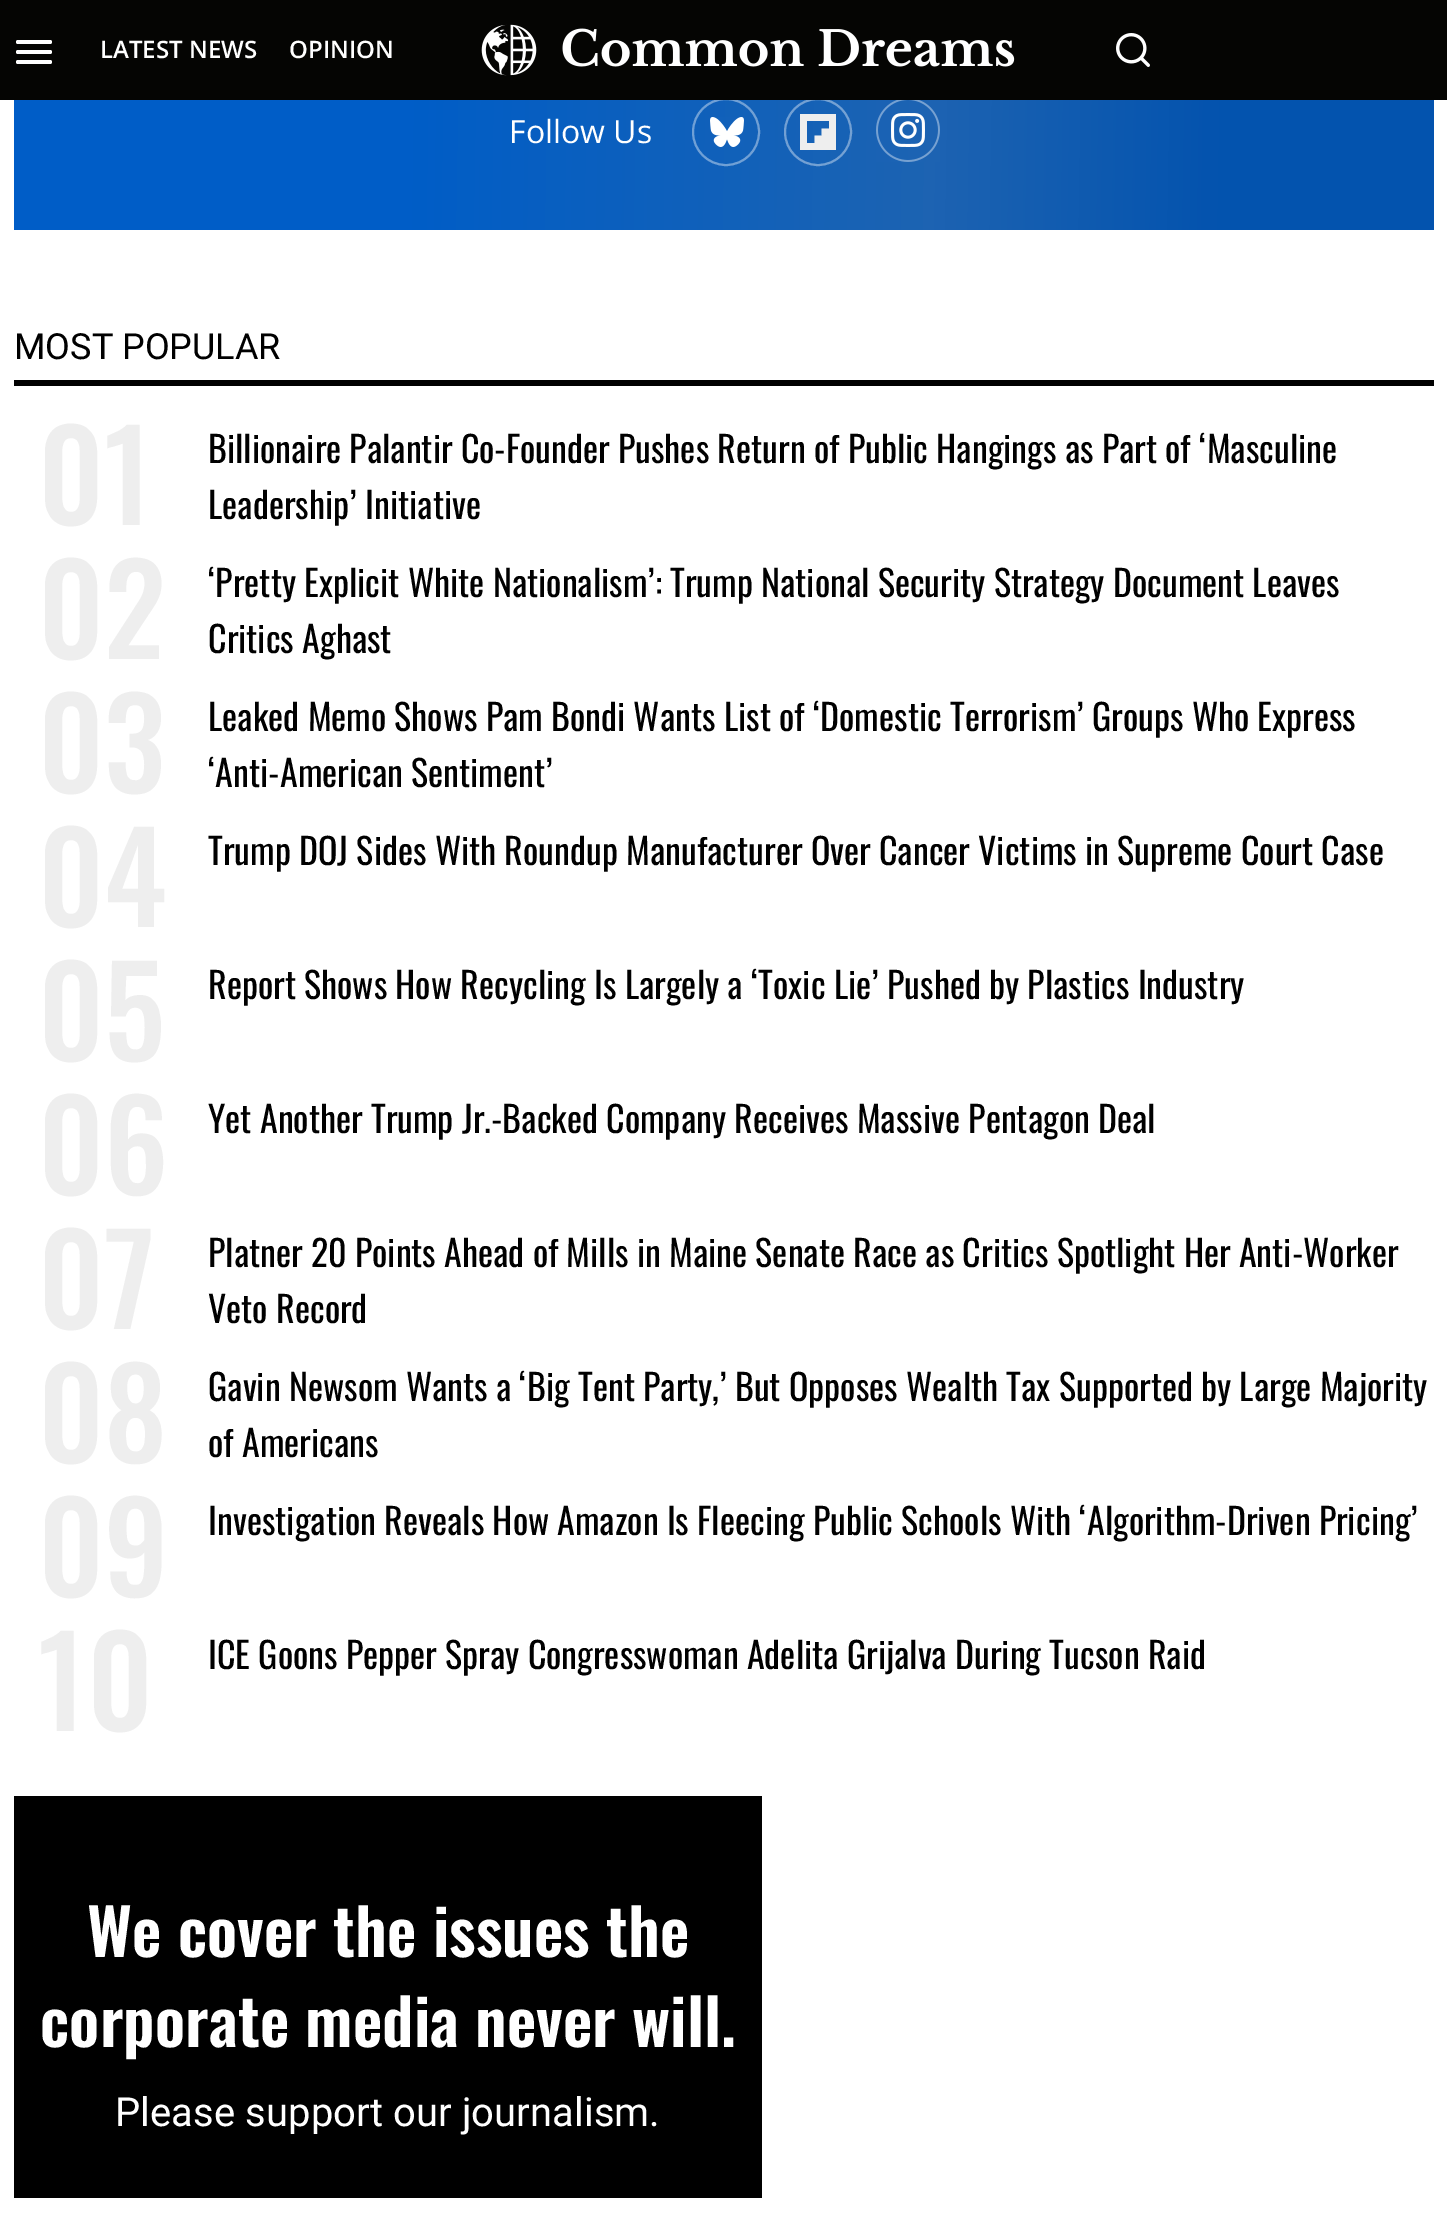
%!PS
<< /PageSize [1447 2238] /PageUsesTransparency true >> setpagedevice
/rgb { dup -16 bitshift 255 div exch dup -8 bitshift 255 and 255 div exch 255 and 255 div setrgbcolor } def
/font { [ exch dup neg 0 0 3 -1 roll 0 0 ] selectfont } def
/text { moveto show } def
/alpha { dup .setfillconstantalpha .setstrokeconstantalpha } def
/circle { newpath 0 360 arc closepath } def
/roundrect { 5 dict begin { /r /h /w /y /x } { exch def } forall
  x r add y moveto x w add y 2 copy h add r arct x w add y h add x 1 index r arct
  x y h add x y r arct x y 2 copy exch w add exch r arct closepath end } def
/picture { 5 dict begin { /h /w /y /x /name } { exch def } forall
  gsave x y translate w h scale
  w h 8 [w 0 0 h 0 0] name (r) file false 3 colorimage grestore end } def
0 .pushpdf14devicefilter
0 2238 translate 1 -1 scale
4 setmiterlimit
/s1 { /OpenSans-SemiBold 24 font 16#FFFFFF rgb } def
/s2 { /OpenSans-Regular 32 font 16#FFFFFF rgb } def
/s3 { /Roboto-Regular 36 font 16#000000 rgb } def
/s4 { /Oswald-Medium 124 font 16#EEEEEE rgb } def
/s5 { /Oswald-Regular 36 font 16#000000 rgb } def
16#FFFFFF rgb
0 0 1447 2238 rectfill
gsave 14 100 moveto 1434 100 lineto 1434 230 lineto 14 230 lineto closepath clip newpath
<< /ShadingType 2 /ColorSpace /DeviceRGB /Coords [10 -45 1438 -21] /Extend [true true] /Function << /FunctionType 3 /Domain [0 1] /Functions [<< /FunctionType 2 /Domain [0 1] /C0 [0 0.365 0.78] /C1 [0 0.365 0.78] /N 1 >> << /FunctionType 2 /Domain [0 1] /C0 [0 0.365 0.78] /C1 [0.114 0.388 0.698] /N 1 >> << /FunctionType 2 /Domain [0 1] /C0 [0.114 0.388 0.698] /C1 [0.012 0.325 0.682] /N 1 >> << /FunctionType 2 /Domain [0 1] /C0 [0.012 0.325 0.682] /C1 [0.012 0.325 0.682] /N 1 >>] /Bounds [0.28 0.65 0.85] /Encode [0 1 0 1 0 1 0 1] >> >> shfill grestore
0.4 alpha
2 setlinewidth
726 132 33 circle stroke
818 132 33 circle stroke
1 alpha
16#050503 rgb
0 0 1447 100 rectfill
16#FFFFFF rgb
16 40 36 4 2 roundrect fill
16 50 36 4 2 roundrect fill
16 60 36 4 2 roundrect fill
s1
(LATEST NEWS) 100 58 text
(OPINION) 289 58 text
(pic1.raw) 481 24 534 52 picture
(pic2.raw) 1116 33 34 34 picture
s2
(Follow Us) 509 143 text
(pic3.raw) 710 117 34 30 picture
16#EEEEEE rgb
800 114 moveto 800 150 lineto 836 150 lineto 836 114 lineto closepath 829 128.5 moveto 821.5 128.5 lineto 821.5 135.5 lineto 814.5 135.5 lineto 814.5 143 lineto 807 143 lineto 807 121 lineto 829 121 lineto closepath fill
(pic4.raw) 876 100 64 62 picture
16#000000 rgb
14 380 1420 6 rectfill
s3
(MOST POPULAR) 14 359 text
s4
(01) 38 525 text
s5
(Billionaire Palantir Co-Founder Pushes Return of Public Hangings as Part of ‘Masculine) 208 463 text
(Leadership’ Initiative) 208 519 text
s4
(02) 38 659 text
s5
(‘Pretty Explicit White Nationalism’: Trump National Security Strategy Document Leaves) 208 597 text
(Critics Aghast) 208 653 text
s4
(03) 38 793 text
s5
(Leaked Memo Shows Pam Bondi Wants List of ‘Domestic Terrorism’ Groups Who Express) 208 731 text
(‘Anti-American Sentiment’) 208 787 text
s4
(04) 38 927 text
s5
(Trump DOJ Sides With Roundup Manufacturer Over Cancer Victims in Supreme Court Case) 208 865 text
s4
(05) 38 1061 text
s5
(Report Shows How Recycling Is Largely a ‘Toxic Lie’ Pushed by Plastics Industry) 208 999 text
s4
(06) 38 1195 text
s5
(Yet Another Trump Jr.-Backed Company Receives Massive Pentagon Deal) 208 1133 text
s4
(07) 38 1329 text
s5
(Platner 20 Points Ahead of Mills in Maine Senate Race as Critics Spotlight Her Anti-Worker) 208 1267 text
(Veto Record) 208 1323 text
s4
(08) 38 1463 text
s5
(Gavin Newsom Wants a ‘Big Tent Party,’ But Opposes Wealth Tax Supported by Large Majority) 208 1401 text
(of Americans) 208 1457 text
s4
(09) 38 1597 text
s5
(Investigation Reveals How Amazon Is Fleecing Public Schools With ‘Algorithm-Driven Pricing’) 208 1535 text
s4
(10) 38 1731 text
s5
(ICE Goons Pepper Spray Congresswoman Adelita Grijalva During Tucson Raid) 208 1669 text
14 1796 748 402 rectfill
/Oswald-SemiBold 64 font
16#FFFFFF rgb
87 1957 moveto 0.1 0 (We cover the issues the) ashow
40 2047 moveto 0.1 0 (corporate media never will.) ashow
/Roboto-Regular 40 font
115 2126 moveto 0.1 0 (Please support our journalism.) ashow
.poppdf14devicefilter showpage
